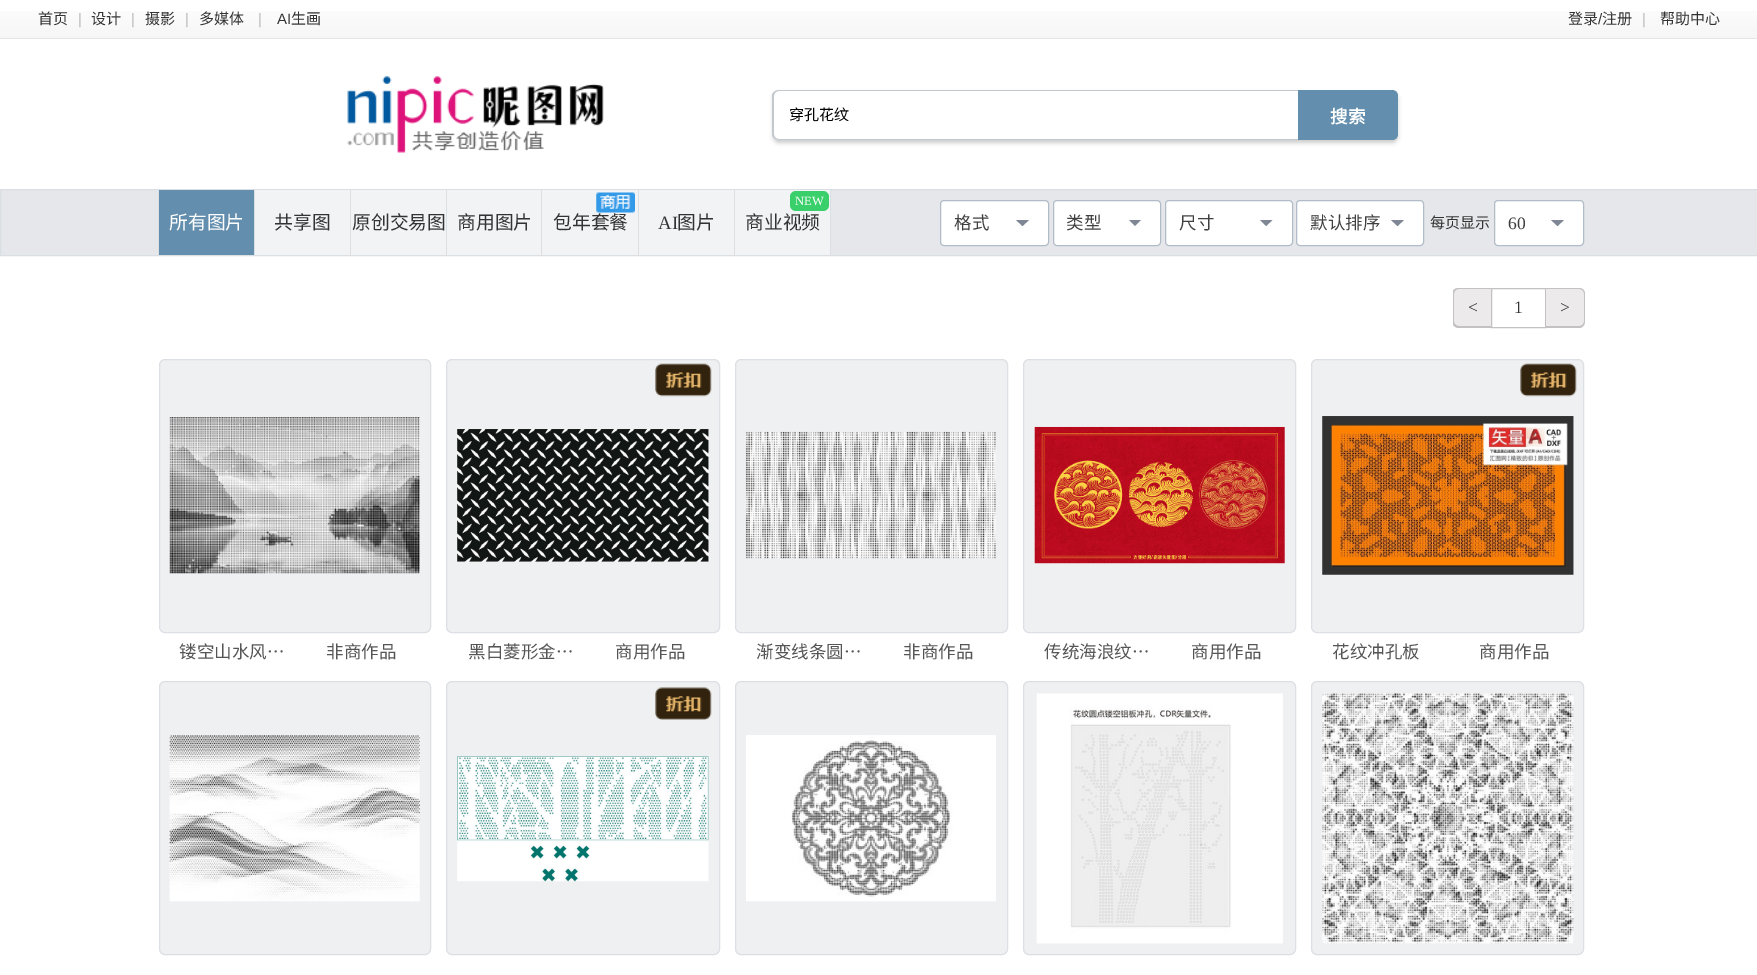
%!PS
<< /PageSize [1757 975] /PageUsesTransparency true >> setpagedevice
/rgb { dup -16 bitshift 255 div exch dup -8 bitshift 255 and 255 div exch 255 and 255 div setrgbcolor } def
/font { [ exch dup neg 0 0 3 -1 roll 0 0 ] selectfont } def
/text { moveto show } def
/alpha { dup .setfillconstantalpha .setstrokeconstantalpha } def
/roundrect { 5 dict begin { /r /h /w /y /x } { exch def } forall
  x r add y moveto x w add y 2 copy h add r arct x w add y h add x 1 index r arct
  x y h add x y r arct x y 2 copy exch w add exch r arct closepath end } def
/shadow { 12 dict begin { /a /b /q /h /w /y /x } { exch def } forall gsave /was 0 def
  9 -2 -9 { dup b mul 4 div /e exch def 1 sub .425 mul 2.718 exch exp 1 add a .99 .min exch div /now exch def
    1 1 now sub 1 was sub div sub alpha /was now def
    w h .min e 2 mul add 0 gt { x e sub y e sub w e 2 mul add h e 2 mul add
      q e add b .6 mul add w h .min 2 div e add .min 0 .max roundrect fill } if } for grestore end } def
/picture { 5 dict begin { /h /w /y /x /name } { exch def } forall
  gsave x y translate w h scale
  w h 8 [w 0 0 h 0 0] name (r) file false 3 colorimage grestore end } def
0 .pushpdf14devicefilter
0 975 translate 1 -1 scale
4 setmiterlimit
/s1 { /NotoSansCJKSC-Regular 15 font 16#333333 rgb } def
/s2 { /LiberationSans-Regular 15 font 16#BBBBBB rgb } def
/s3 { /LiberationSans-Regular 15 font 16#333333 rgb } def
/s4 { /NotoSansCJKSC-Regular 15 font 16#000000 rgb } def
/s5 { /NotoSansCJKSC-Bold 17.5 font 16#FFFFFF rgb } def
/s6 { /NotoSansCJKSC-Regular 18.75 font 16#FFFFFF rgb } def
/s7 { /NotoSansCJKSC-Regular 18.75 font 16#333333 rgb } def
/s8 { /LiberationSerif-Regular 18.75 font 16#333333 rgb } def
/s9 { /LiberationSerif-Regular 12.5 font 16#FFFFFF rgb } def
/s10 { /NotoSansCJKSC-Regular 17.5 font 16#404040 rgb } def
/s11 { /LiberationSerif-Regular 17.5 font 16#404040 rgb } def
/s12 { /LiberationSerif-Regular 17.5 font 16#333333 rgb } def
/s13 { /NotoSansCJKSC-Regular 17.5 font 16#555555 rgb } def
16#FFFFFF rgb
0 0 1757 975 rectfill
gsave 0 11 moveto 1757 11 lineto 1757 38 lineto 0 38 lineto closepath clip newpath
<< /ShadingType 2 /ColorSpace /DeviceRGB /Coords [879 0 879 38] /Extend [true true] /Function << /FunctionType 2 /Domain [0 1] /C0 [1 1 1] /C1 [0.965 0.965 0.965] /N 1 >> >> shfill grestore
16#E5E5E5 rgb
0 38 1757 1 rectfill
s1
(首页) 38 24 text
s2
(|) 78 24 text
s1
(设计) 91 24 text
s2
(|) 131 24 text
s1
(摄影) 145 24 text
s2
(|) 185 24 text
s1
(多媒体) 199 24 text
s2
(|) 258 24 text
s3
(AI) 277 24 text
s1
(生画) 291 24 text
(登录) 1568 24 text
s3
(/) 1598 24 text
s1
(注册) 1602 24 text
s2
(|) 1642 24 text
s1
(帮助中心) 1660 24 text
(pic1.raw) 347 76 257 77 picture
16#CCCCCC rgb
773 93 625 50 6 2 1 shadow
16#FFFFFF rgb
779 90 moveto 1298 90 lineto 1298 140 lineto 779 140 lineto 775.5 140 773 137.5 773 134 curveto 773 96 lineto 773 92.5 775.5 90 779 90 curveto closepath fill
16#C3C8CD rgb
779 90 moveto 1298 90 lineto 1298 140 lineto 779 140 lineto 775 140 772 137 772 134 curveto 772 96 lineto 772 93 775 90 779 90 curveto closepath 779 91 moveto 1298 91 lineto 1298 139 lineto 779 139 lineto 776 139 774 137 774 134 curveto 774 96 lineto 774 93 776 91 779 91 curveto closepath eofill
s4
(穿孔花纹) 789 120 text
16#638EAE rgb
1298 90 moveto 1392 90 lineto 1395.5 90 1398 92.5 1398 96 curveto 1398 134 lineto 1398 137.5 1395.5 140 1392 140 curveto 1298 140 lineto closepath fill
s5
(搜索) 1330 123 text
16#E5E7EA rgb
0.5 189.5 moveto 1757.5 189.5 lineto 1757.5 255.5 lineto 0.5 255.5 lineto closepath gsave fill grestore
16#DADFE3 rgb
stroke
16#638EAE rgb
159 190 95 65 rectfill
16#DADFE3 rgb
158 190 1 65 rectfill
s6
(所有图片) 169 229 text
16#F2F3F5 rgb
255 190 95 65 rectfill
16#DADFE3 rgb
254 190 1 65 rectfill
s7
(共享图) 274 229 text
16#F2F3F5 rgb
351 190 95 65 rectfill
16#DADFE3 rgb
350 190 1 65 rectfill
s7
(原创交易图) 352 229 text
16#F2F3F5 rgb
447 190 94 65 rectfill
16#DADFE3 rgb
446 190 1 65 rectfill
s7
(商用图片) 457 229 text
16#F2F3F5 rgb
542 190 96 65 rectfill
16#DADFE3 rgb
638 190 1 65 rectfill
541 190 1 65 rectfill
(pic2.raw) 596 192 39 21 picture
s7
(包年套餐) 553 229 text
16#F2F3F5 rgb
639 190 95 65 rectfill
s8
(AI) 658 229 text
s7
(图片) 677 229 text
16#F2F3F5 rgb
735 190 95 65 rectfill
16#DADFE3 rgb
830 190 1 65 rectfill
734 190 1 65 rectfill
16#39D06B rgb
790 191 39 20 6 roundrect fill
s9
(NEW) 795 205 text
s7
(商业视频) 745 229 text
16#FFFFFF rgb
940.5 200.5 108 45 3.5 roundrect gsave fill grestore
16#B2BCC8 rgb
stroke
s10
(格式) 954 229 text
16#7F8794 rgb
1016 220 moveto 1029 220 lineto 1022.5 226 lineto closepath fill
16#FFFFFF rgb
1053.5 200.5 107 45 3.5 roundrect gsave fill grestore
16#B2BCC8 rgb
stroke
s10
(类型) 1066 229 text
16#7F8794 rgb
1129 220 moveto 1141 220 lineto 1135 226 lineto closepath fill
16#FFFFFF rgb
1165.5 200.5 127 45 3.5 roundrect gsave fill grestore
16#B2BCC8 rgb
stroke
s10
(尺寸) 1179 229 text
16#7F8794 rgb
1260 220 moveto 1272.5 220 lineto 1266 226 lineto closepath fill
16#FFFFFF rgb
1296.5 200.5 127 45 3.5 roundrect gsave fill grestore
16#B2BCC8 rgb
stroke
s10
(默认排序) 1310 229 text
16#7F8794 rgb
1391 220 moveto 1404 220 lineto 1397.5 226 lineto closepath fill
s1
(每页显示) 1430 228 text
16#FFFFFF rgb
1494.5 200.5 89 45 3.5 roundrect gsave fill grestore
16#B2BCC8 rgb
stroke
s11
(60) 1508 229 text
16#7F8794 rgb
1551 220 moveto 1564 220 lineto 1557.5 226 lineto closepath fill
16#ECEAEB rgb
1459 288 moveto 1491 288 lineto 1491 328 lineto 1459 328 lineto 1455.5 328 1453 325.5 1453 322 curveto 1453 294 lineto 1453 290.5 1455.5 288 1459 288 curveto closepath fill
gsave
1453 288 146 40 rectclip
16#C3C1C2 rgb
1459 288 moveto 1491 288 lineto 1491 328 lineto 1459 328 lineto 1455 328 1452 325 1452 321 curveto 1452 294 lineto 1452 290 1455 288 1459 288 curveto closepath 1459 289 moveto 1491 289 lineto 1491 326 lineto 1459 326 lineto 1456 326 1454 324 1454 321 curveto 1454 294 lineto 1454 291 1456 289 1459 289 curveto closepath eofill
grestore
s12
(<) 1468 313 text
16#C3C1C2 rgb
1491.5 288.5 54 39 rectstroke
s12
(1) 1514 313 text
16#ECEAEB rgb
1546 288 moveto 1579 288 lineto 1582.5 288 1585 290.5 1585 294 curveto 1585 322 lineto 1585 325.5 1582.5 328 1579 328 curveto 1546 328 lineto closepath fill
16#C3C1C2 rgb
1546 288 moveto 1579 288 lineto 1582 288 1585 290 1585 294 curveto 1585 321 lineto 1585 325 1582 328 1579 328 curveto 1546 328 lineto closepath 1546 289 moveto 1579 289 lineto 1582 289 1584 291 1584 294 curveto 1584 321 lineto 1584 324 1582 326 1579 326 curveto 1546 326 lineto closepath eofill
s12
(>) 1560 313 text
16#EFF0F2 rgb
159.5 359.5 271 273 5.5 roundrect gsave fill grestore
16#DCDFE4 rgb
stroke
(pic3.raw) 169 417 251 157 picture
s13
(镂空山水风…) 179 658 text
(非商作品) 326 658 text
16#EFF0F2 rgb
446.5 359.5 273 273 5.5 roundrect gsave fill grestore
16#DCDFE4 rgb
stroke
(pic4.raw) 457 429 252 133 picture
(pic5.raw) 655 363 57 34 picture
s13
(黑白菱形金…) 468 658 text
(商用作品) 615 658 text
16#EFF0F2 rgb
735.5 359.5 272 273 5.5 roundrect gsave fill grestore
16#DCDFE4 rgb
stroke
(pic6.raw) 745 431 251 128 picture
s13
(渐变线条圆…) 756 658 text
(非商作品) 903 658 text
16#EFF0F2 rgb
1023.5 359.5 272 273 5.5 roundrect gsave fill grestore
16#DCDFE4 rgb
stroke
(pic7.raw) 1034 426 251 138 picture
s13
(传统海浪纹…) 1044 658 text
(商用作品) 1191 658 text
16#EFF0F2 rgb
1311.5 359.5 272 273 5.5 roundrect gsave fill grestore
16#DCDFE4 rgb
stroke
(pic8.raw) 1322 416 252 159 picture
(pic5.raw) 1520 363 57 34 picture
s13
(花纹冲孔板) 1332 658 text
(商用作品) 1479 658 text
16#EFF0F2 rgb
159.5 681.5 271 273 5.5 roundrect gsave fill grestore
16#DCDFE4 rgb
stroke
(pic9.raw) 169 735 251 167 picture
16#EFF0F2 rgb
446.5 681.5 273 273 5.5 roundrect gsave fill grestore
16#DCDFE4 rgb
stroke
(pic10.raw) 457 756 252 126 picture
(pic11.raw) 655 687 57 33 picture
16#EFF0F2 rgb
735.5 681.5 272 273 5.5 roundrect gsave fill grestore
16#DCDFE4 rgb
stroke
(pic12.raw) 746 735 250 167 picture
16#EFF0F2 rgb
1023.5 681.5 272 273 5.5 roundrect gsave fill grestore
16#DCDFE4 rgb
stroke
(pic13.raw) 1036 693 247 251 picture
16#EFF0F2 rgb
1311.5 681.5 272 273 5.5 roundrect gsave fill grestore
16#DCDFE4 rgb
stroke
(pic14.raw) 1322 693 252 251 picture
.poppdf14devicefilter showpage
